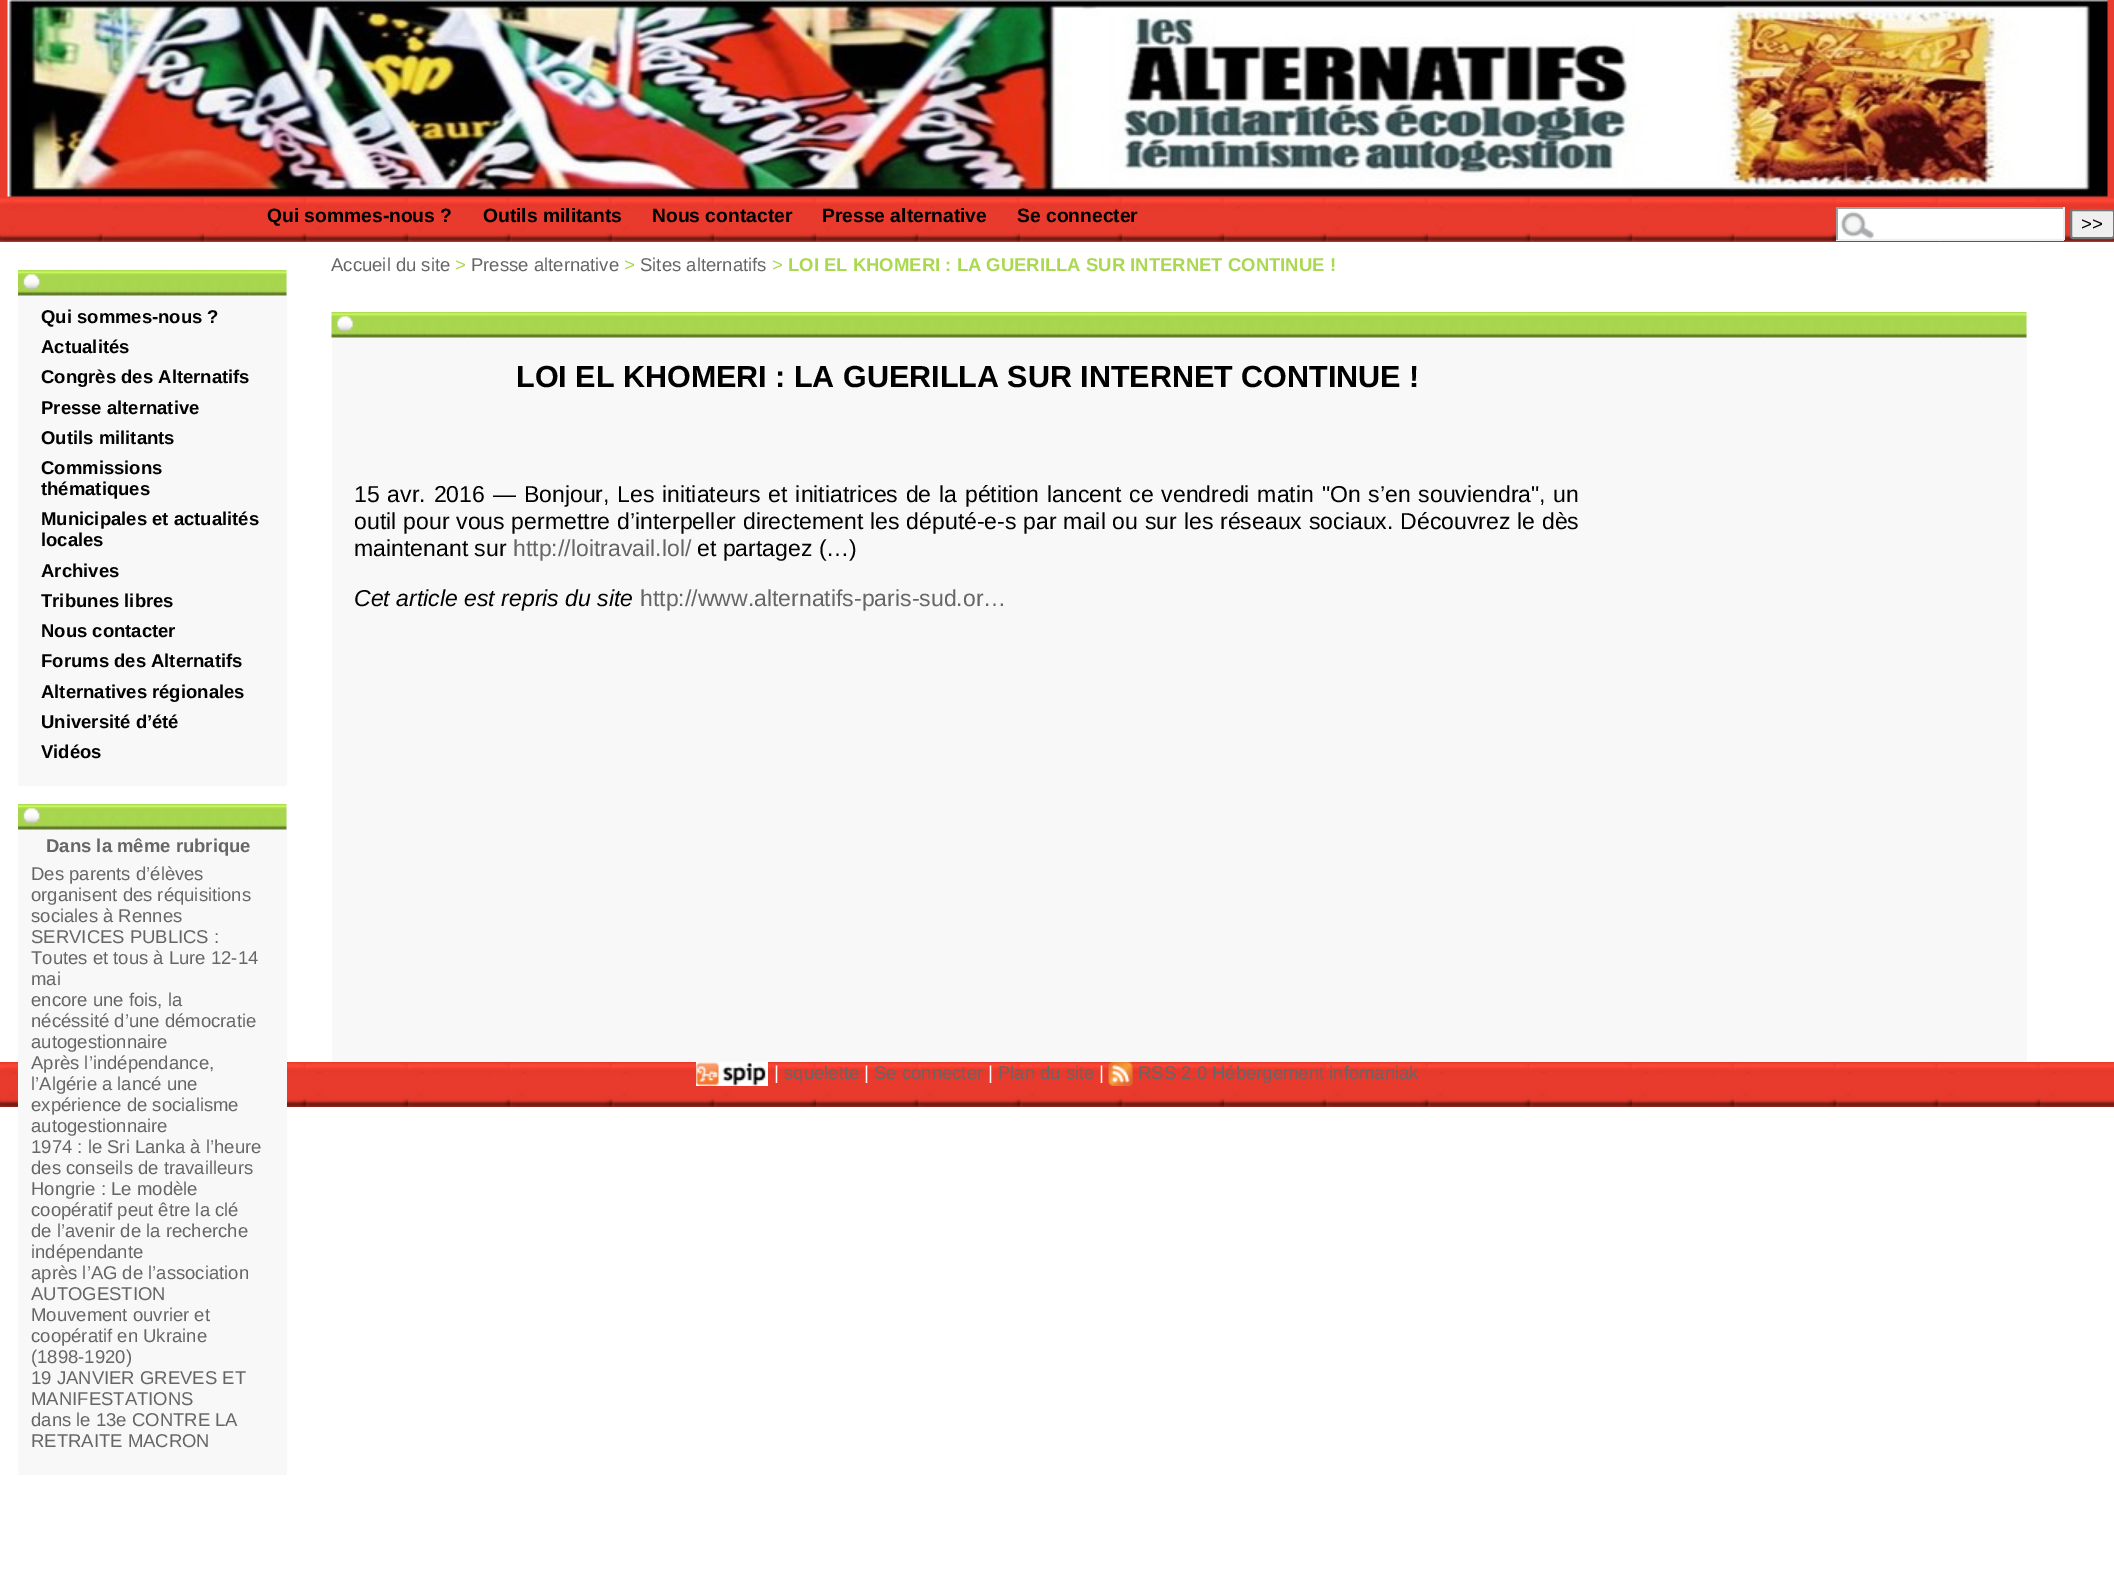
%!PS
<< /PageSize [2114 1572] >> setpagedevice
/rgb { dup -16 bitshift 255 div exch dup -8 bitshift 255 and 255 div exch 255 and 255 div setrgbcolor } def
/font { [ exch dup neg 0 0 3 -1 roll 0 0 ] selectfont } def
/text { moveto show } def
/roundrect { 5 dict begin { /r /h /w /y /x } { exch def } forall
  x r add y moveto x w add y 2 copy h add r arct x w add y h add x 1 index r arct
  x y h add x y r arct x y 2 copy exch w add exch r arct closepath end } def
/picture { 5 dict begin { /h /w /y /x /name } { exch def } forall
  gsave x y translate w h scale
  w h 8 [w 0 0 h 0 0] name (r) file false 3 colorimage grestore end } def
0 1572 translate 1 -1 scale
4 setmiterlimit
/s1 { /LiberationSans-Bold 19.25 font 16#000000 rgb } def
/s2 { /LiberationSans-Regular 18.5 font 16#000000 rgb } def
/s3 { /LiberationSans-Bold 18.5 font 16#000000 rgb } def
/s4 { /LiberationSans-Bold 18.5 font 16#666666 rgb } def
/s5 { /LiberationSans-Regular 18.5 font 16#666666 rgb } def
/s6 { /LiberationSans-Regular 18.5 font 16#ABD851 rgb } def
/s7 { /LiberationSans-Bold 18.5 font 16#ABD851 rgb } def
/s8 { /LiberationSans-Bold 30.5 font 16#000000 rgb } def
/s9 { /LiberationSans-Regular 23.05 font 16#000000 rgb } def
/s10 { /LiberationSans-Regular 23.05 font 16#666666 rgb } def
/s11 { /LiberationSans-Italic 23.05 font 16#000000 rgb } def
/s12 { /LiberationSans-Regular 18.5 font 16#FFFFFF rgb } def
16#FFFFFF rgb
0 0 2114 1572 rectfill
16#E93C2E rgb
0 0 2114 242 rectfill
(pic1.raw) 7 0 2101 197 picture
(pic2.raw) 0 198 2114 44 picture
s1
(Qui sommes-nous ?) 267 222 text
(Outils militants) 483 222 text
(Nous contacter) 652 222 text
(Presse alternative) 822 222 text
(Se connecter) 1017 222 text
16#FFFFFF rgb
1838 209 225 30 rectfill
(pic3.raw) 1840 211 34 28 picture
16#9F9F9F rgb
1836 207 228 2 rectfill
16#EEEEEE rgb
2063 207 2 33 rectfill
1836 239 228 2 rectfill
16#9F9F9F rgb
1836 207 2 33 rectfill
16#EFEFEF rgb
2071 210 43 28 2 roundrect gsave fill grestore
16#767676 rgb
2 setlinewidth
stroke
s2
(>>) 2081 230 text
16#F8F8F8 rgb
18 270 269 516 rectfill
(pic4.raw) 18 270 269 26 picture
s3
(Qui sommes-nous ?) 41 323 text
(Actualités) 41 353 text
(Congrès des Alternatifs) 41 383 text
(Presse alternative) 41 414 text
(Outils militants) 41 444 text
(Commissions) 41 474 text
(thématiques) 41 495 text
(Municipales et actualités) 41 525 text
(locales) 41 546 text
(Archives) 41 577 text
(Tribunes libres) 41 607 text
(Nous contacter) 41 637 text
(Forums des Alternatifs) 41 667 text
(Alternatives régionales) 41 698 text
(Université d’été) 41 728 text
(Vidéos) 41 758 text
(pic6.raw) 0 1062 2114 45 picture
16#F8F8F8 rgb
18 804 269 671 rectfill
(pic4.raw) 18 804 269 26 picture
s4
(Dans la même rubrique) 46 852 text
s5
(Des parents d’élèves) 31 880 text
(organisent des réquisitions) 31 901 text
(sociales à Rennes) 31 922 text
(SERVICES PUBLICS :) 31 943 text
(Toutes et tous à Lure 12-14) 31 964 text
(mai) 31 985 text
(encore une fois, la) 31 1006 text
(nécéssité d’une démocratie) 31 1027 text
(autogestionnaire) 31 1048 text
(Après l’indépendance,) 31 1069 text
(l’Algérie a lancé une) 31 1090 text
(expérience de socialisme) 31 1111 text
(autogestionnaire) 31 1132 text
(1974 : le Sri Lanka à l’heure) 31 1153 text
(des conseils de travailleurs) 31 1174 text
(Hongrie : Le modèle) 31 1195 text
(coopératif peut être la clé) 31 1216 text
(de l’avenir de la recherche) 31 1237 text
(indépendante) 31 1258 text
(après l’AG de l’association) 31 1279 text
(AUTOGESTION) 31 1300 text
(Mouvement ouvrier et) 31 1321 text
(coopératif en Ukraine) 31 1342 text
(\(1898-1920\)) 31 1363 text
(19 JANVIER GREVES ET) 31 1384 text
(MANIFESTATIONS) 31 1405 text
(dans le 13e CONTRE LA) 31 1426 text
(RETRAITE MACRON) 31 1447 text
(Accueil du site) 331 271 text
s6
(>) 455 271 text
s5
(Presse alternative) 471 271 text
s6
(>) 624 271 text
s5
(Sites alternatifs) 640 271 text
s6
(>) 772 271 text
s7
(LOI EL KHOMERI : LA GUERILLA SUR INTERNET CONTINUE !) 788 271 text
16#F8F8F8 rgb
332 312 1695 750 rectfill
(pic5.raw) 331 312 1696 26 picture
s8
(LOI EL KHOMERI : LA GUERILLA SUR INTERNET CONTINUE !) 516 387 text
/LiberationSans-Regular 23.05 font
354 502 moveto 1.4 0 32 (15 avr. 2016 — Bonjour,) widthshow
617 502 moveto 1.4 0 32 (Les initiateurs et initiatrices de la pétition lancent ce vendredi matin "On s’en souviendra", un) widthshow
354 529 moveto 0.4 0 32 (outil pour vous permettre d’interpeller directement les député-e-s par mail ou sur les réseaux sociaux. Découvrez le dès) widthshow
(maintenant sur) 354 556 text
s10
(http://loitravail.lol/) 513 556 text
s9
(et partagez \(…\)) 697 556 text
s11
(Cet article est repris du site) 354 606 text
s10
(http://www.alternatifs-paris-sud.or…) 640 606 text
(pic7.raw) 696 1062 72 24 picture
s12
(|) 774 1079 text
s5
(squelette) 784 1079 text
s12
(|) 864 1079 text
s5
(Se connecter) 874 1079 text
s12
(|) 988 1079 text
s5
(Plan du site) 998 1079 text
s12
(|) 1099 1079 text
(pic8.raw) 1108 1062 25 24 picture
s5
(RSS 2.0 Hébergement infomaniak) 1138 1079 text
showpage
